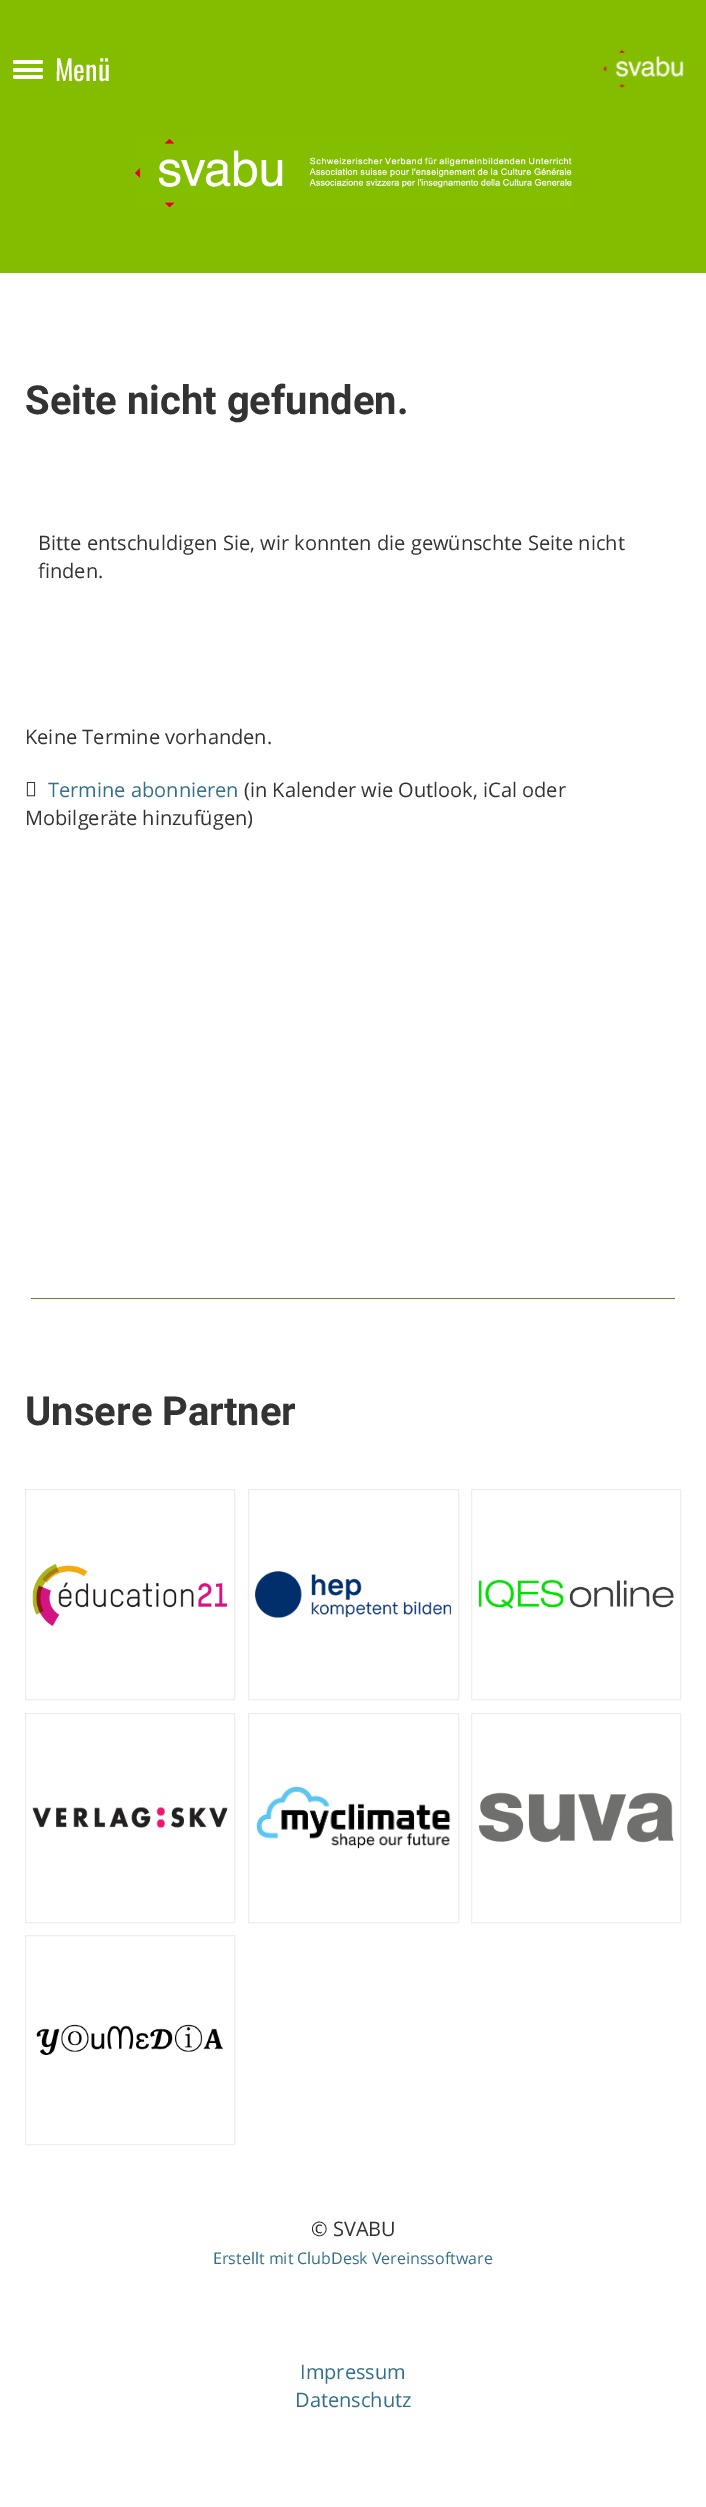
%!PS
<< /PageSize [706 2507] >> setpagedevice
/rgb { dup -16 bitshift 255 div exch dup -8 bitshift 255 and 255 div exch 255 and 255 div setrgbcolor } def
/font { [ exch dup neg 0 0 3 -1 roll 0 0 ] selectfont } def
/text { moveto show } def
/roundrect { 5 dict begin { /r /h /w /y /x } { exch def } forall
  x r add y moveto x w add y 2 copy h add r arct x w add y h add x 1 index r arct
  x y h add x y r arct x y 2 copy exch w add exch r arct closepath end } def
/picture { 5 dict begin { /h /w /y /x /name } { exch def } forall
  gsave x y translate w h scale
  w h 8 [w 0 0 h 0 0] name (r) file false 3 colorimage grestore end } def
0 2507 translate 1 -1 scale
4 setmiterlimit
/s1 { /Oswald-Regular 28 font 16#FFFFFF rgb } def
/s2 { /Roboto-Bold 40 font 16#333333 rgb } def
/s3 { /OpenSans-Regular 20 font 16#333333 rgb } def
/s4 { /OpenSans-Regular 20 font 16#33708C rgb } def
/s5 { /OpenSans-Regular 16 font 16#33708C rgb } def
16#FFFFFF rgb
0 0 706 2507 rectfill
16#84BD00 rgb
0 0 706 273 rectfill
16#FFFFFF rgb
13 60 30 4 2 roundrect fill
13 68 30 4 2 roundrect fill
13 75 30 4 2 roundrect fill
s1
(Menü) 55 81 text
(pic1.raw) 603 50 81 38 picture
(pic2.raw) 134 138 438 70 picture
s2
(Seite nicht gefunden.) 25 414 text
s3
(Bitte entschuldigen Sie, wir konnten die gewünschte Seite nicht) 38 550 text
(finden.) 38 578 text
(Keine Termine vorhanden.) 25 744 text
(pic3.raw) 26 781 10 16 picture
s4
(Termine abonnieren) 48 797 text
s3
(\(in Kalender wie Outlook, iCal oder) 244 797 text
(Mobilgeräte hinzufügen\)) 25 825 text
16#707A35 rgb
31 1298 644 1 rectfill
s2
(Unsere Partner) 25 1425 text
16#EEEEEE rgb
25.5 1489.5 209 210 rectstroke
(pic4.raw) 32 1563 195 64 picture
248.5 1489.5 210 210 rectstroke
(pic5.raw) 255 1571 197 47 picture
471.5 1489.5 209 210 rectstroke
(pic6.raw) 478 1580 196 29 picture
25.5 1713.5 209 209 rectstroke
(pic7.raw) 32 1807 196 21 picture
248.5 1713.5 210 209 rectstroke
(pic8.raw) 256 1786 195 63 picture
471.5 1713.5 209 209 rectstroke
(pic9.raw) 478 1792 196 51 picture
25.5 1935.5 209 209 rectstroke
(pic10.raw) 36 2024 187 31 picture
s3
(© SVABU) 311 2236 text
s5
(Erstellt mit ClubDesk Vereinssoftware) 213 2264 text
s4
(Impressum) 300 2379 text
(Datenschutz) 295 2407 text
showpage
